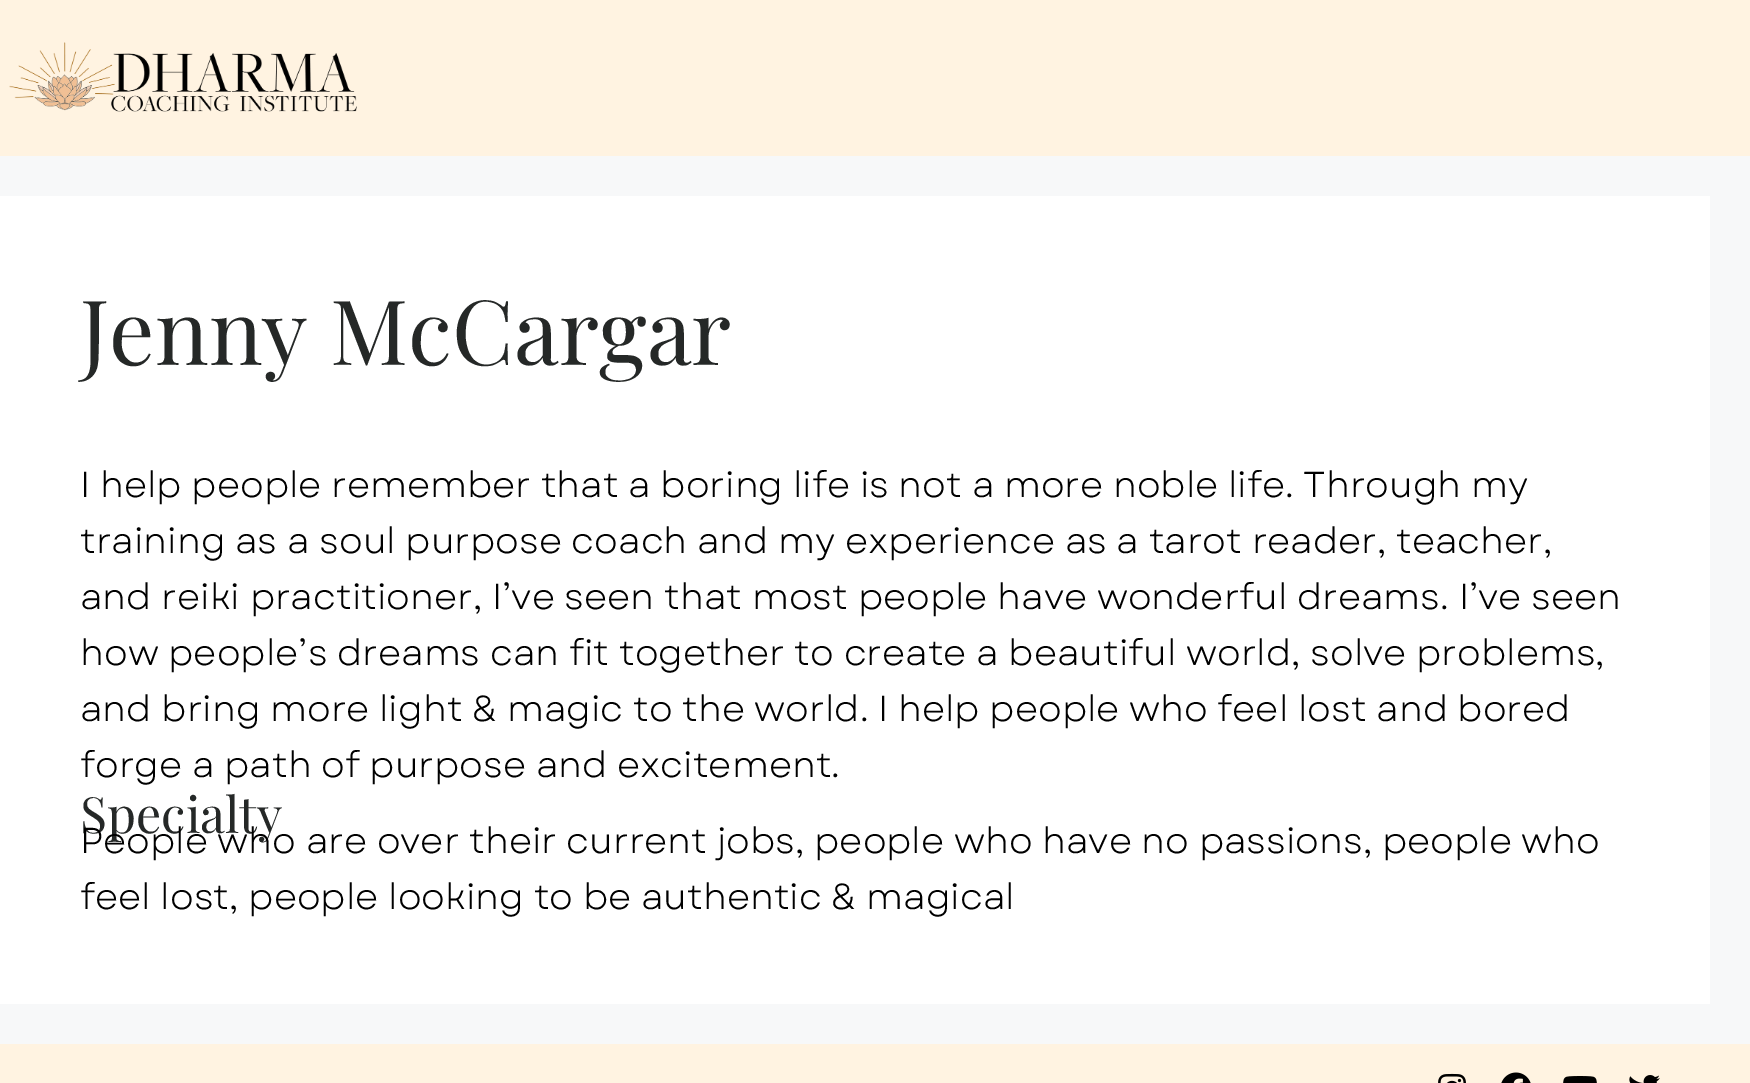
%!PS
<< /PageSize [1750 1083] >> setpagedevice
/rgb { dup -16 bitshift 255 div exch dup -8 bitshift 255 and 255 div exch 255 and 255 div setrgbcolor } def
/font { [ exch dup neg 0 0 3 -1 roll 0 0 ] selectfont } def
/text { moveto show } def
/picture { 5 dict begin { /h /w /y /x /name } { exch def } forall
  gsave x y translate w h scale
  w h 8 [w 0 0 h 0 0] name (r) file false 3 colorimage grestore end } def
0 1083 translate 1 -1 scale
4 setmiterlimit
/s1 { /PlayfairDisplay-Regular 90 font 16#252827 rgb } def
/s2 { /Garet-Regular 36 font 16#000000 rgb } def
/s3 { /PlayfairDisplay-Regular 50 font 16#252827 rgb } def
16#F7F8F9 rgb
0 0 1750 1083 rectfill
16#FFF3E1 rgb
0 0 1750 156 rectfill
(pic1.raw) 9 42 348 70 picture
16#FFFFFF rgb
0 196 1710 808 rectfill
s1
(Jenny McCargar) 80 365 text
s2
(I help people remember that a boring life is not a more noble life. Through my) 80 497 text
(training as a soul purpose coach and my experience as a tarot reader, teacher,) 80 553 text
(and reiki practitioner, I’ve seen that most people have wonderful dreams. I’ve seen) 80 609 text
(how people’s dreams can fit together to create a beautiful world, solve problems,) 80 665 text
(and bring more light & magic to the world. I help people who feel lost and bored) 80 721 text
(forge a path of purpose and excitement.) 80 777 text
s3
(Specialty) 80 833 text
s2
(People who are over their current jobs, people who have no passions, people who) 80 853 text
(feel lost, people looking to be authentic & magical) 80 909 text
16#FFF3E1 rgb
0 1044 1750 39 rectfill
(pic2.raw) 1438 1073 28 10 picture
(pic3.raw) 1501 1072 30 11 picture
(pic4.raw) 1563 1076 34 7 picture
(pic5.raw) 1629 1075 31 8 picture
showpage
